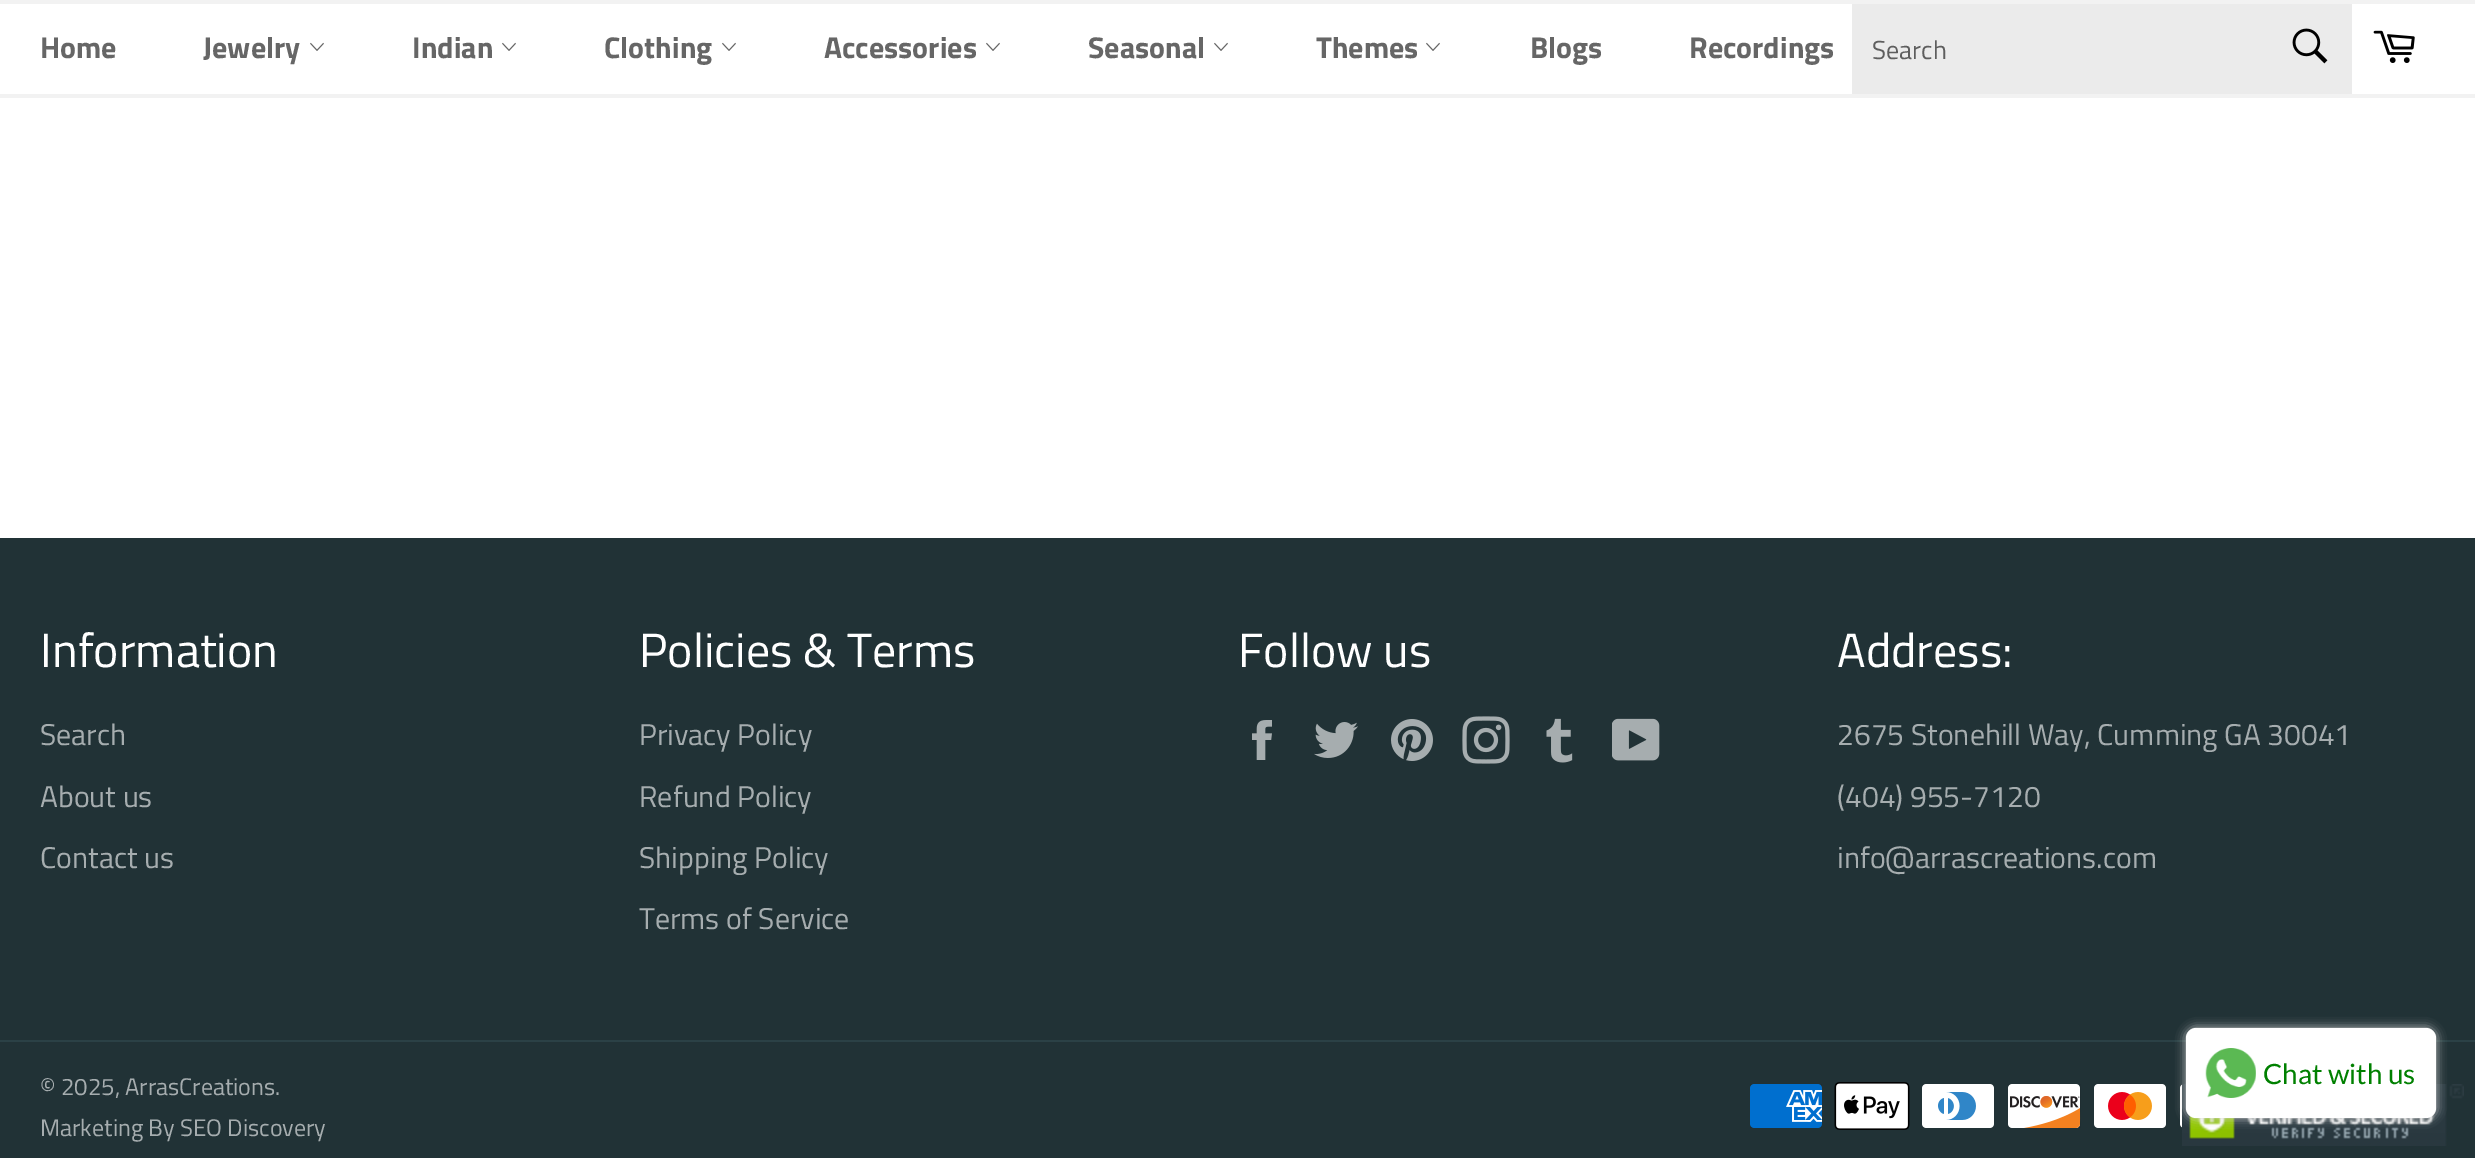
%!PS
<< /PageSize [2475 1158] /PageUsesTransparency true >> setpagedevice
/rgb { dup -16 bitshift 255 div exch dup -8 bitshift 255 and 255 div exch 255 and 255 div setrgbcolor } def
/font { [ exch dup neg 0 0 3 -1 roll 0 0 ] selectfont } def
/text { moveto show } def
/alpha { dup .setfillconstantalpha .setstrokeconstantalpha } def
/roundrect { 5 dict begin { /r /h /w /y /x } { exch def } forall
  x r add y moveto x w add y 2 copy h add r arct x w add y h add x 1 index r arct
  x y h add x y r arct x y 2 copy exch w add exch r arct closepath end } def
/shadow { 12 dict begin { /a /b /q /h /w /y /x } { exch def } forall gsave /was 0 def
  9 -2 -9 { dup b mul 4 div /e exch def 1 sub .425 mul 2.718 exch exp 1 add a .99 .min exch div /now exch def
    1 1 now sub 1 was sub div sub alpha /was now def
    w h .min e 2 mul add 0 gt { x e sub y e sub w e 2 mul add h e 2 mul add
      q e add b .6 mul add w h .min 2 div e add .min 0 .max roundrect fill } if } for grestore end } def
/picture { 5 dict begin { /h /w /y /x /name } { exch def } forall
  gsave x y translate w h scale
  w h 8 [w 0 0 h 0 0] name (r) file false 3 colorimage grestore end } def
0 .pushpdf14devicefilter
0 1158 translate 1 -1 scale
4 setmiterlimit
/s1 { /TitilliumWeb-Bold 30 font 16#666666 rgb } def
/s2 { /TitilliumWeb-Regular 26 font 16#5E5E5E rgb } def
/s3 { /TitilliumWeb-Regular 48 font 16#FFFFFF rgb } def
/s4 { /TitilliumWeb-Regular 30 font 16#A6ADAF rgb } def
/s5 { /TitilliumWeb-Regular 24 font 16#A6ADAF rgb } def
/s6 { /Lato-Regular 28 font 16#008000 rgb } def
16#FFFFFF rgb
0 0 2475 1158 rectfill
16#F2F2F2 rgb
0 0 2475 4 rectfill
0 94 2475 4 rectfill
s1
(Home) 40 58 text
(Jewelry) 203 58 text
(pic1.raw) 310 42 14 9 picture
(Indian) 412 58 text
(pic1.raw) 502 42 14 9 picture
(Clothing) 604 58 text
(pic1.raw) 722 42 14 9 picture
(Accessories) 824 58 text
(pic1.raw) 986 42 14 9 picture
(Seasonal) 1088 58 text
(pic1.raw) 1214 42 14 9 picture
(Themes) 1316 58 text
(pic1.raw) 1426 42 14 9 picture
(Blogs) 1530 58 text
(Recordings) 1689 58 text
16#EBEBEB rgb
1852 4 500 90 rectfill
s2
(Search) 1872 59 text
(pic2.raw) 2292 28 36 36 picture
(pic3.raw) 2373 30 42 33 picture
16#213236 rgb
0 538 2475 620 rectfill
s3
(Information) 40 667 text
s4
(Search) 40 745 text
(About us) 40 807 text
(Contact us) 40 868 text
s3
(Policies & Terms) 639 667 text
s4
(Privacy Policy) 639 745 text
(Refund Policy) 639 807 text
(Shipping Policy) 639 868 text
(Terms of Service) 639 929 text
s3
(Follow us) 1238 667 text
(pic4.raw) 1252 720 20 40 picture
(pic5.raw) 1314 722 44 36 picture
(pic6.raw) 1391 719 42 42 picture
(pic7.raw) 1462 716 48 48 picture
(pic8.raw) 1546 718 27 45 picture
(pic9.raw) 1612 718 48 43 picture
(Address:) 1837 667 text
s4
(2675 Stonehill Way, Cumming GA 30041) 1837 745 text
(\(404\) 955-7120) 1837 807 text
(info@arrascreations.com) 1837 868 text
16#2B4146 rgb
0 1040 2475 2 rectfill
s5
(© 2025, ArrasCreations.) 40 1095 text
(Marketing By SEO Discovery) 40 1136 text
(pic10.raw) 1750 1084 72 44 picture
(pic11.raw) 1834 1082 76 48 picture
(pic12.raw) 1922 1084 72 44 picture
(pic13.raw) 2008 1084 73 44 picture
(pic14.raw) 2094 1084 72 44 picture
(pic15.raw) 2180 1084 2 44 picture
(pic17.raw) 2182 1084 282 62 picture
16#D3D3D3 rgb
2186 1028 250 90 10 5 1 shadow
16#FFFFFF rgb
2186 1028 250 90 10 roundrect fill
(pic16.raw) 2205 1048 51 50 picture
s6
(Chat with us) 2263 1084 text
.poppdf14devicefilter showpage
